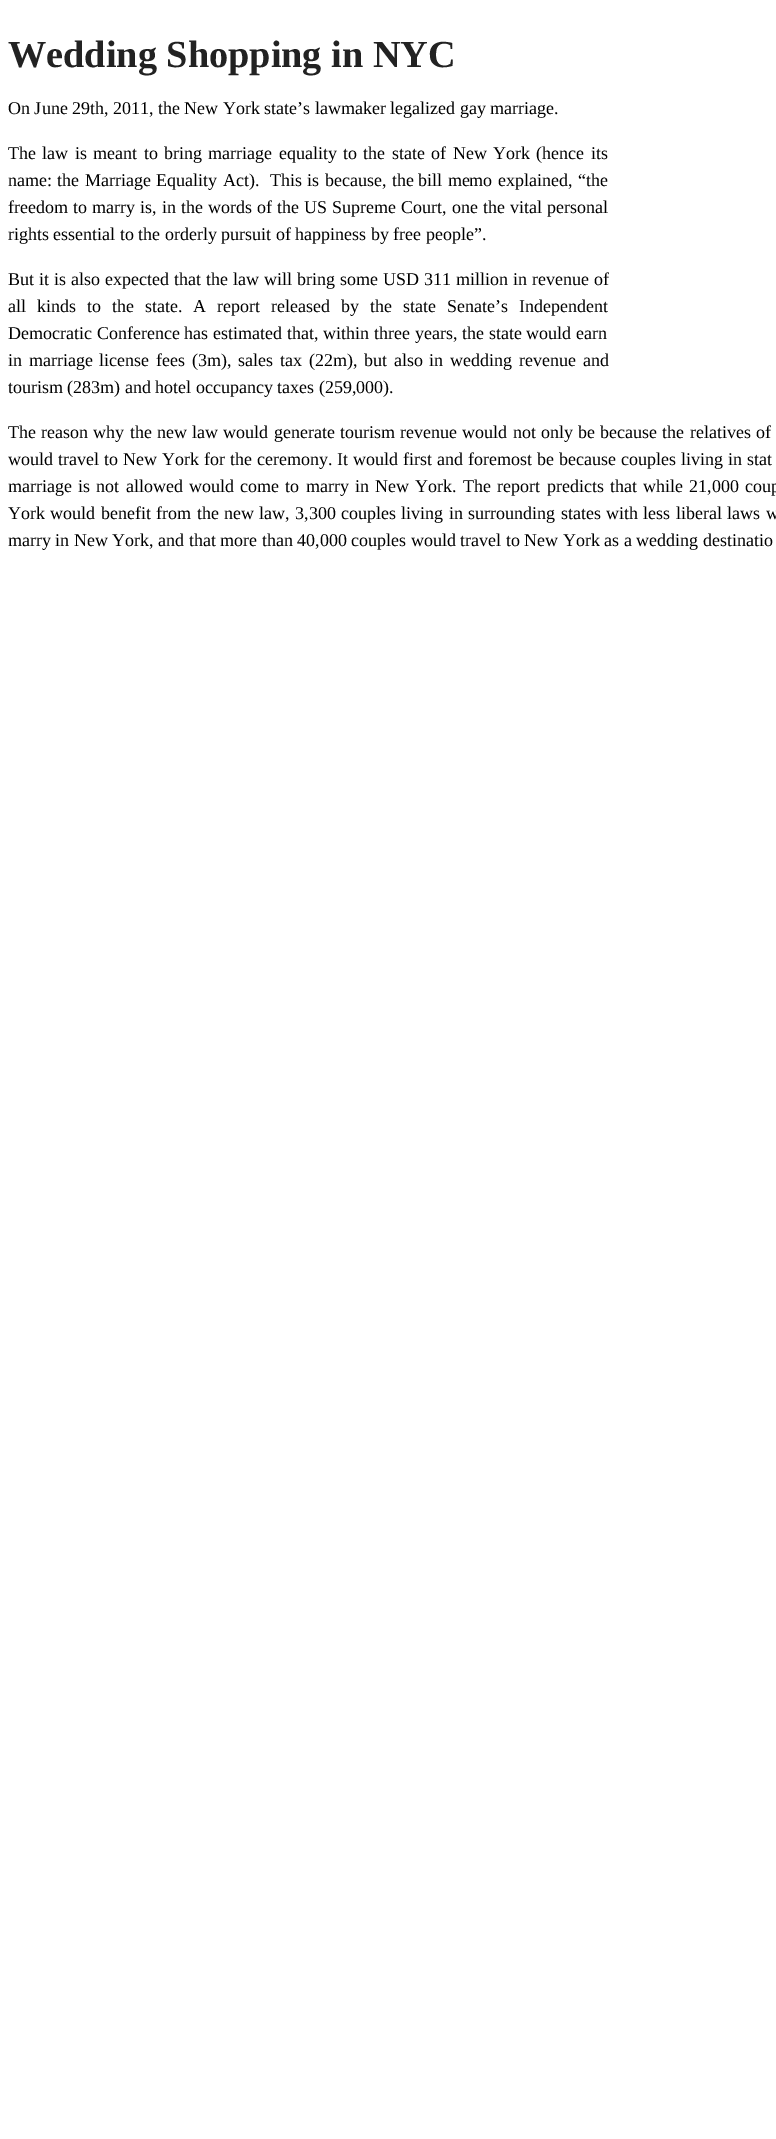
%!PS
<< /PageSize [776 2139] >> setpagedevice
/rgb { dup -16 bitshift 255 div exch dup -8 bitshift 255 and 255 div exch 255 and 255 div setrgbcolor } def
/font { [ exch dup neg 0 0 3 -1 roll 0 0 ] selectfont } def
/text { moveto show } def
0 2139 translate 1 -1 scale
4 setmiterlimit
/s1 { /LiberationSerif-Bold 38.25 font 16#222222 rgb } def
/s2 { /LiberationSerif-Regular 18 font 16#000000 rgb } def
16#FFFFFF rgb
0 0 776 2139 rectfill
s1
(Wedding Shopping in NYC) 8 67 text
s2
(On June 29th, 2011, the New York state’s lawmaker legalized gay marriage.) 8 114 text
8 159 moveto 1.9 0 32 (The law is meant to bring marriage equality to the state of New York \(hence its) widthshow
8 186 moveto 0.9 0 32 (name: the) widthshow
85 186 moveto 0.9 0 32 (Marriage Equality Act\).  This is because, the) widthshow
418 186 moveto 1 0 32 (bill memo) widthshow
498 186 moveto 0.9 0 32 (explained, “the) widthshow
8 213 moveto 0.6 0 32 (freedom to marry is, in the words of the US Supreme Court, one the vital personal) widthshow
(rights essential to the orderly pursuit of happiness by free people”.) 8 240 text
8 285 moveto 0.5 0 32 (But it is also expected that the law will bring some USD 311 million in revenue of) widthshow
8 312 moveto 6.5 0 32 (all kinds to the state. A) widthshow
(report) 217 312 text
271 312 moveto 6.5 0 32 (released by the state Senate’s Independent) widthshow
8 339 moveto 0.25 0 32 (Democratic Conference has estimated that, within three years, the state would earn) widthshow
8 366 moveto 2.25 0 32 (in marriage license fees \(3m\), sales tax \(22m\), but also in wedding revenue and) widthshow
(tourism \(283m\) and hotel occupancy taxes \(259,000\).) 8 393 text
8 438 moveto 0.75 0 32 (The reason why the new law would generate tourism revenue would not only be because the relatives of) widthshow
8 465 moveto 0.5 0 32 (would travel to New York for the ceremony. It would first and foremost be because couples living in stat) widthshow
8 492 moveto 1.75 0 32 (marriage is not allowed would come to marry in New York. The report predicts that while 21,000 coup) widthshow
8 519 moveto 0.9 0 32 (York would benefit from the new law, 3,300 couples living in surrounding states with less liberal laws w) widthshow
(marry in New York, and that more than 40,000 couples would travel to New York as a wedding destinatio) 8 546 text
showpage
